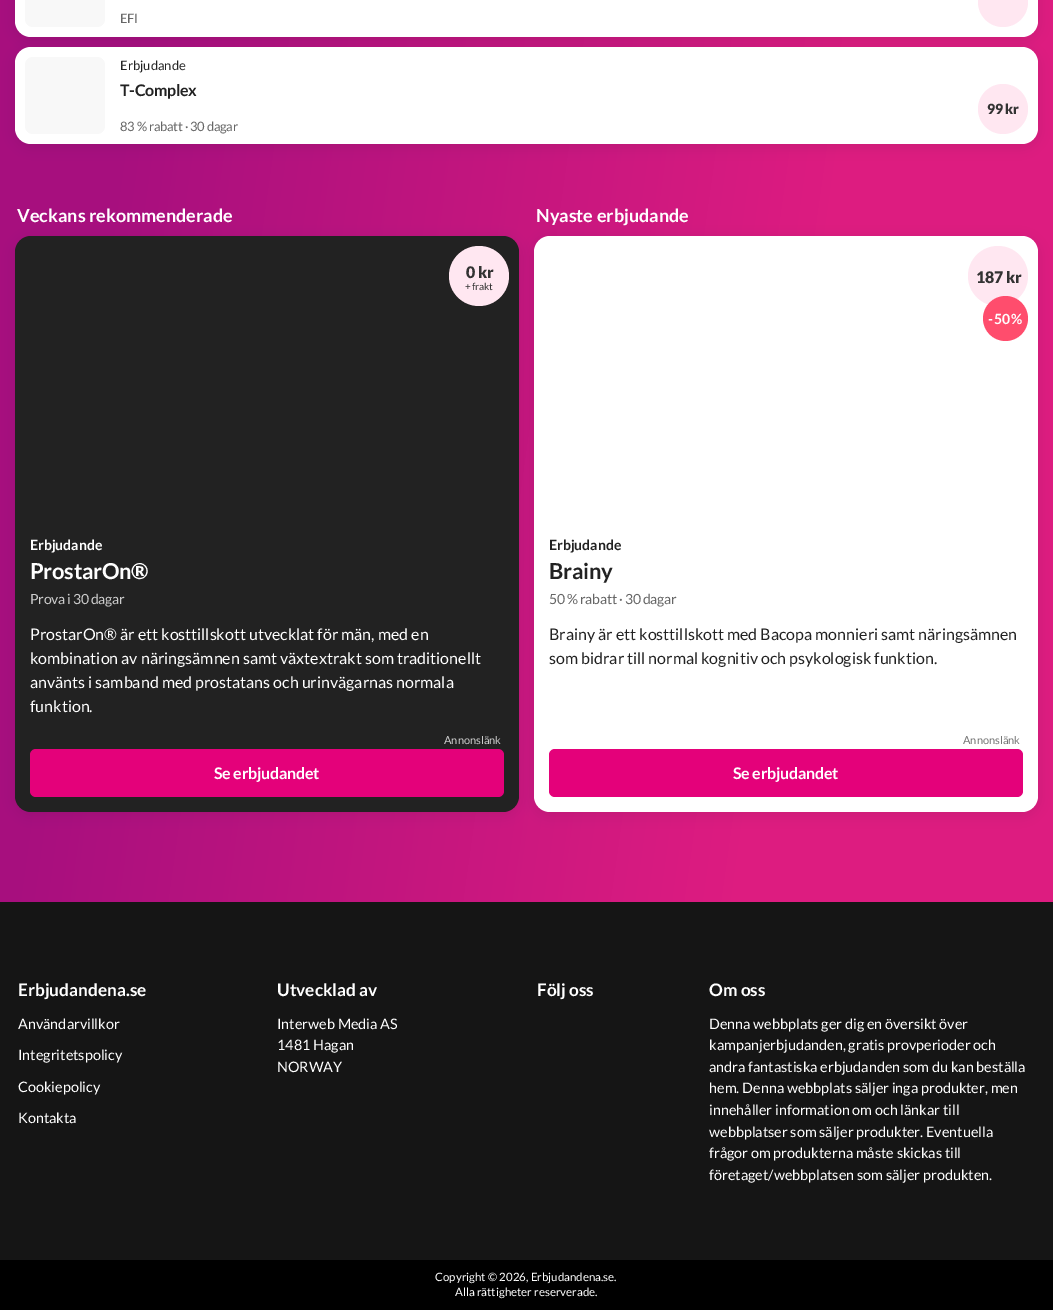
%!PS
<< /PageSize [1053 1310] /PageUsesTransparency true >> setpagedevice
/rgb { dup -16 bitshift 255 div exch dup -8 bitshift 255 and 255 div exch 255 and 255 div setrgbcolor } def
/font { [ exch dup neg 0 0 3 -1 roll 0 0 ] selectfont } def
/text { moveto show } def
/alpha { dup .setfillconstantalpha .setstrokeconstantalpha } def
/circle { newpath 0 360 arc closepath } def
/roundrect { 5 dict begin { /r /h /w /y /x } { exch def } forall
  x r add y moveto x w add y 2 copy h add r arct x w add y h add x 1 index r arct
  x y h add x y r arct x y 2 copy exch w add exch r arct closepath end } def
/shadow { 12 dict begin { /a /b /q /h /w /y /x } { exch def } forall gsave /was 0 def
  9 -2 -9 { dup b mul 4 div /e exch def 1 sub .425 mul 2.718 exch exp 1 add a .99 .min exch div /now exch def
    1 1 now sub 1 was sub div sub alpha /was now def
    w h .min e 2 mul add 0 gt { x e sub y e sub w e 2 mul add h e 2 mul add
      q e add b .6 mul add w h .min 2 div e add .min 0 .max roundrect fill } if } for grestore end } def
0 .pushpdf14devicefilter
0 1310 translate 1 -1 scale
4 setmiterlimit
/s1 { /Lato-Regular 13 font 16#222222 rgb } def
/s2 { /Lato-Bold 18 font 16#FFFFFF rgb } def
/s3 { /Lato-Bold 14 font 16#FFFFFF rgb } def
/s4 { /Lato-Regular 16 font 16#FFFFFF rgb } def
/s5 { /Lato-Regular 11 font 16#CCCCCC rgb } def
/s6 { /Lato-Bold 14 font 16#222222 rgb } def
/s7 { /Lato-Regular 16 font 16#222222 rgb } def
/s8 { /Lato-Regular 11 font 16#757575 rgb } def
/s9 { /Lato-Bold 17.25 font 16#FFFFFF rgb } def
/s10 { /Lato-Regular 14.4 font 16#FFFFFF rgb } def
/s11 { /Lato-Regular 11.5 font 16#FFFFFF rgb } def
16#151515 rgb
0 0 1053 1310 rectfill
gsave 0 0 moveto 1053 0 lineto 1053 902 lineto 0 902 lineto closepath clip newpath
<< /ShadingType 2 /ColorSpace /DeviceRGB /Coords [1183 -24 -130 -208] /Extend [true true] /Function << /FunctionType 3 /Domain [0 1] /Functions [<< /FunctionType 2 /Domain [0 1] /C0 [0.867 0.11 0.502] /C1 [0.867 0.11 0.502] /N 1 >> << /FunctionType 2 /Domain [0 1] /C0 [0.867 0.11 0.502] /C1 [0.655 0.059 0.494] /N 1 >> << /FunctionType 2 /Domain [0 1] /C0 [0.655 0.059 0.494] /C1 [0.655 0.059 0.494] /N 1 >>] /Bounds [0.24 0.78] /Encode [0 1 0 1 0 1] >> >> shfill grestore
16#000000 rgb
15 -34 1023 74 16 6 0.08 shadow
16#FFFFFF rgb
15 -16 1023 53 16 roundrect fill
16#F8F8F8 rgb
25 -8 80 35 8 roundrect fill
/Lato-Regular 13 font
16#666666 rgb
120 23 moveto -0.3 0 (EFI) ashow
16#FFE7F1 rgb
1003 2 25 circle fill
16#000000 rgb
15 50 1023 97 16 6 0.08 shadow
16#FFFFFF rgb
15 47 1023 97 16 roundrect fill
16#F8F8F8 rgb
25 57 80 77 8 roundrect fill
s1
(Erbjudande) 120 70 text
/Lato-Bold 16 font
120 96 moveto -0.3 0 (T-Complex) ashow
16#FFE7F1 rgb
1003 109 25 circle fill
/Lato-Black 14 font
16#333333 rgb
987 114 moveto -0.3 0 (99 kr) ashow
/Lato-Regular 13 font
16#666666 rgb
120 131 moveto -0.3 0 (83 % rabatt · 30 dagar) ashow
s2
(Veckans rekommenderade) 17 222 text
16#000000 rgb
15 239 504 576 16 6 0.08 shadow
16#222222 rgb
15 236 504 576 16 roundrect fill
16#FFE7F1 rgb
479 276 30 circle fill
/Lato-Black 16 font
16#333333 rgb
466 278 moveto -0.3 0 (0 kr) ashow
/Lato-Regular 10 font
465 290 moveto -0.3 0 (+ frakt) ashow
/Lato-Regular 14 font
16#CCCCCC rgb
30 604 moveto -0.3 0 (Prova i 30 dagar) ashow
s3
(Erbjudande) 30 550 text
/Lato-Bold 22 font
30 579 moveto -0.3 0 (ProstarOn®) ashow
s4
(ProstarOn® är ett kosttillskott utvecklat för män, med en) 30 640 text
(kombination av näringsämnen samt växtextrakt som traditionellt) 30 664 text
(använts i samband med prostatans och urinvägarnas normala) 30 688 text
(funktion.) 30 712 text
s5
(Annonslänk) 444 744 text
16#E4017A rgb
30 749 474 48 6 roundrect fill
/Lato-Bold 16 font
16#FFFFFF rgb
214 779 moveto -0.25 0 (Se erbjudandet) ashow
s2
(Nyaste erbjudande) 536 222 text
16#000000 rgb
534 239 504 576 16 6 0.08 shadow
16#FFFFFF rgb
534 236 504 576 16 roundrect fill
16#FFE7F1 rgb
998 276 30 circle fill
/Lato-Black 16 font
16#333333 rgb
976 283 moveto -0.3 0 (187 kr) ashow
/Lato-Regular 14 font
16#666666 rgb
549 604 moveto -0.3 0 (50 % rabatt · 30 dagar) ashow
s6
(Erbjudande) 549 550 text
/Lato-Bold 22 font
549 579 moveto -0.3 0 (Brainy) ashow
s7
(Brainy är ett kosttillskott med Bacopa monnieri samt näringsämnen) 549 640 text
(som bidrar till normal kognitiv och psykologisk funktion.) 549 664 text
s8
(Annonslänk) 963 744 text
16#E4017A rgb
549 749 474 48 6 roundrect fill
/Lato-Bold 16 font
16#FFFFFF rgb
733 779 moveto -0.25 0 (Se erbjudandet) ashow
16#FF4D6D rgb
1005.5 318.5 22.5 circle fill
/Lato-Bold 14 font
16#FFFFFF rgb
988 324 moveto 0.5 0 (-50%) ashow
s9
(Erbjudandena.se) 18 996 text
s10
(Användarvillkor) 18 1029 text
(Integritetspolicy) 18 1060 text
(Cookiepolicy) 18 1092 text
(Kontakta) 18 1123 text
s9
(Utvecklad av) 277 996 text
s10
(Interweb Media AS) 277 1029 text
(1481 Hagan) 277 1050 text
(NORWAY) 277 1072 text
s9
(Följ oss) 537 996 text
(Om oss) 709 996 text
s10
(Denna webbplats ger dig en översikt över) 709 1029 text
(kampanjerbjudanden, gratis provperioder och) 709 1050 text
(andra fantastiska erbjudanden som du kan beställa) 709 1072 text
(hem. Denna webbplats säljer inga produkter, men) 709 1093 text
(innehåller information om och länkar till) 709 1115 text
(webbplatser som säljer produkter. Eventuella) 709 1137 text
(frågor om produkterna måste skickas till) 709 1158 text
(företaget/webbplatsen som säljer produkten.) 709 1180 text
16#000000 rgb
0 1260 1053 50 rectfill
s11
(Copyright © 2026, Erbjudandena.se.) 435 1281 text
(Alla rättigheter reserverade.) 455 1296 text
.poppdf14devicefilter showpage
